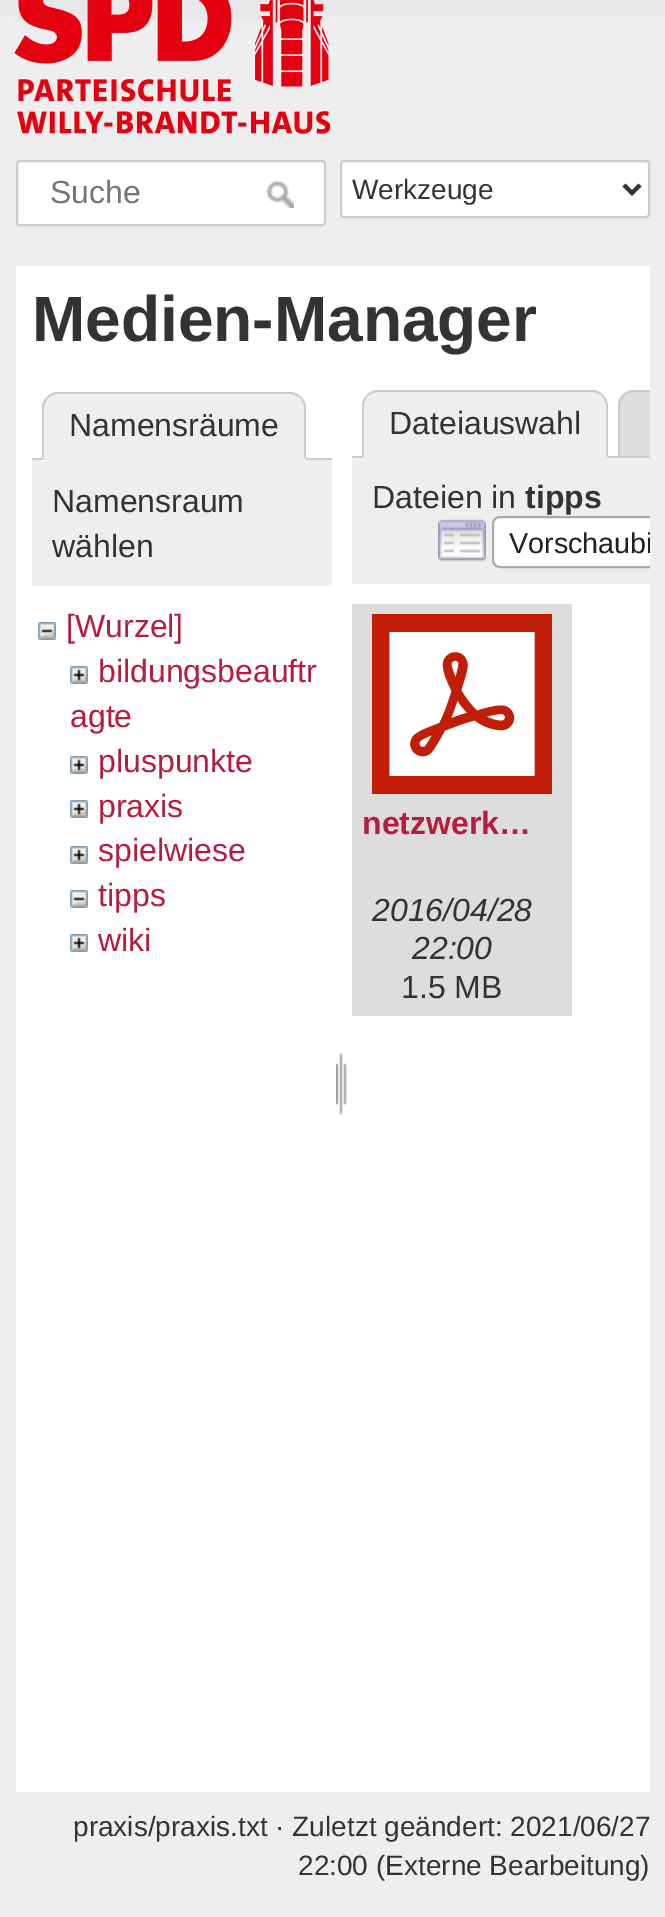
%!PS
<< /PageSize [665 1917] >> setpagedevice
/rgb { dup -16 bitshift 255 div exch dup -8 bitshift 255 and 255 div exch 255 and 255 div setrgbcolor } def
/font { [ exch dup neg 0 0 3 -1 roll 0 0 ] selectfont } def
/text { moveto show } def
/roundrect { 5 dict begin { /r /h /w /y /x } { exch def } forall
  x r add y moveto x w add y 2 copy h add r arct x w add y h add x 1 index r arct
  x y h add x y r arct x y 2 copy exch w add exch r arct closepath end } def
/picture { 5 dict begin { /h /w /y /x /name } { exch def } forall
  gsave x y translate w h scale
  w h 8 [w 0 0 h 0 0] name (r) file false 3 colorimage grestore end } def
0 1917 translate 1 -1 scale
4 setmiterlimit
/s1 { /LiberationSans-Regular 32 font 16#757575 rgb } def
/s2 { /LiberationSans-Regular 28 font 16#333333 rgb } def
/s3 { /LiberationSans-Bold 64 font 16#333333 rgb } def
/s4 { /LiberationSans-Regular 32 font 16#333333 rgb } def
/s5 { /LiberationSans-Regular 32 font 16#B61C3E rgb } def
/s6 { /LiberationSans-Bold 32 font 16#333333 rgb } def
/s7 { /LiberationSans-Regular 28.75 font 16#212121 rgb } def
/s8 { /LiberationSans-Bold 32 font 16#B61C3E rgb } def
/s9 { /LiberationSans-Italic 32 font 16#333333 rgb } def
16#EEEEEE rgb
0 0 665 1917 rectfill
(pic1.raw) 0 0 665 16 picture
(pic2.raw) 14 0 316 134 picture
16#FFFFFF rgb
17 161 308 64 3 roundrect gsave fill grestore
16#CCCCCC rgb
2 setlinewidth
stroke
s1
(Suche) 50 203 text
(pic3.raw) 266 180 28 28 picture
16#FFFFFF rgb
341 161 308 56 3 roundrect gsave fill grestore
16#CCCCCC rgb
stroke
16#333333 rgb
4 setlinewidth
624 185 moveto 632 193 lineto 640 185 lineto stroke
s2
(Werkzeuge) 352 199 text
16#FFFFFF rgb
16 266 634 1526 rectfill
s3
(Medien-Manager) 32 341 text
16#CCCCCC rgb
32 458 300 2 rectfill
16#EEEEEE rgb
58 392 moveto 290 392 lineto 299 392 306 399 306 408 curveto 306 460 lineto 42 460 lineto 42 408 lineto 42 399 49 392 58 392 curveto closepath fill
16#CCCCCC rgb
58 392 moveto 54 392 50 394 47 397 curveto 48 398 lineto 50 396 54 394 58 394 curveto 290 394 lineto 294 394 298 396 300 398 curveto 301 397 lineto 298 394 294 392 290 392 curveto closepath fill
306 460 moveto 306 408 lineto 306 404 304 400 301 397 curveto 300 398 lineto 302 400 304 404 304 408 curveto 304 458 lineto closepath fill
16#EEEEEE rgb
306 460 moveto 304 458 lineto 44 458 lineto 42 460 lineto closepath fill
16#CCCCCC rgb
42 460 moveto 44 458 lineto 44 408 lineto 44 404 46 400 48 398 curveto 47 397 lineto 44 400 42 404 42 408 curveto closepath fill
s4
(Namensräume) 69 436 text
16#EEEEEE rgb
32 460 300 126 rectfill
s4
(Namensraum) 52 512 text
(wählen) 52 557 text
(pic4.raw) 38 622 18 18 picture
s5
([Wurzel]) 66 637 text
(pic5.raw) 70 666 18 18 picture
(bildungsbeauftr) 98 682 text
(agte) 70 727 text
(pic5.raw) 70 756 18 18 picture
(pluspunkte) 98 772 text
(pic5.raw) 70 800 18 18 picture
(praxis) 98 817 text
(pic5.raw) 70 846 18 18 picture
(spielwiese) 98 861 text
(pic4.raw) 70 890 18 18 picture
(tipps) 98 906 text
(pic5.raw) 70 934 18 18 picture
(wiki) 98 951 text
(pic6.raw) 336 1052 11 63 picture
16#CCCCCC rgb
352 456 266 2 rectfill
16#EEEEEE rgb
378 390 moveto 592 390 lineto 601 390 608 397 608 406 curveto 608 458 lineto 362 458 lineto 362 406 lineto 362 397 369 390 378 390 curveto closepath fill
16#CCCCCC rgb
378 390 moveto 374 390 370 392 367 395 curveto 368 396 lineto 370 394 374 392 378 392 curveto 592 392 lineto 596 392 600 394 602 396 curveto 603 395 lineto 600 392 596 390 592 390 curveto closepath fill
608 458 moveto 608 406 lineto 608 402 606 398 603 395 curveto 602 396 lineto 604 398 606 402 606 406 curveto 606 456 lineto closepath fill
16#EEEEEE rgb
608 458 moveto 606 456 lineto 364 456 lineto 362 458 lineto closepath fill
16#CCCCCC rgb
362 458 moveto 364 456 lineto 364 406 lineto 364 402 366 398 368 396 curveto 367 395 lineto 364 398 362 402 362 406 curveto closepath fill
s4
(Dateiauswahl) 389 434 text
16#DDDDDD rgb
634 390 moveto 650 390 lineto 650 458 lineto 618 458 lineto 618 406 lineto 618 397 625 390 634 390 curveto closepath fill
gsave
352 390 298 68 rectclip
16#CCCCCC rgb
2 setlinewidth
634 391 moveto 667 391 lineto 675.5 391 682 397.5 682 406 curveto 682 457 lineto 619 457 lineto 619 406 lineto 619 397.5 625.5 391 634 391 curveto closepath stroke
grestore
16#EEEEEE rgb
352 458 298 126 rectfill
s4
(Dateien in) 372 508 text
s6
(tipps) 525 508 text
(pic7.raw) 438 519 48 43 picture
16#FFFFFF rgb
500 516 moveto 650 516 lineto 650 568 lineto 500 568 lineto 495.5 568 492 564.5 492 560 curveto 492 524 lineto 492 519.5 495.5 516 500 516 curveto closepath fill
(pic8.raw) 492 516 6 52 picture
gsave
352 458 298 126 rectclip
16#AAAAAA rgb
2 setlinewidth
500 517 moveto 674 517 lineto 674 567 lineto 500 567 lineto 496 567 493 564 493 560 curveto 493 524 lineto 493 520 496 517 500 517 curveto closepath stroke
s7
(Vorschaubi) 509 553 text
grestore
16#DDDDDD rgb
352 604 220 412 rectfill
(pic9.raw) 372 614 180 180 picture
s8
(netzwerk…) 362 834 text
s9
(2016/04/28) 372 921 text
(22:00) 412 959 text
s4
(1.5 MB) 401 998 text
s2
(praxis/praxis.txt · Zuletzt geändert: 2021/06/27) 73 1836 text
(22:00 \(Externe Bearbeitung\)) 298 1875 text
showpage
